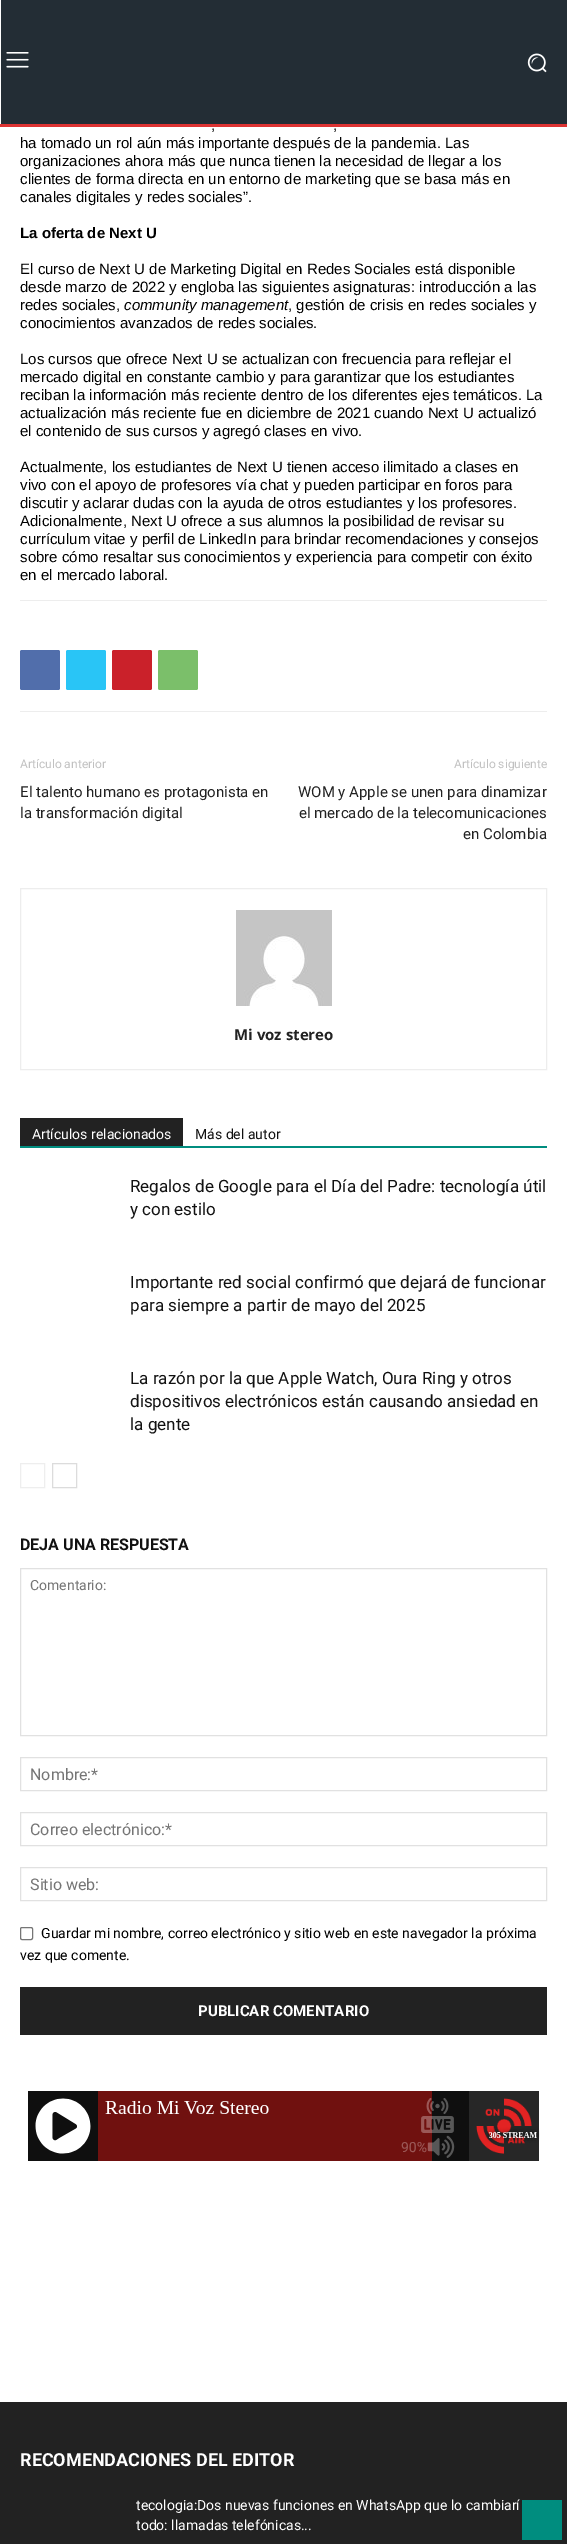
%!PS
<< /PageSize [567 2544] >> setpagedevice
/rgb { dup -16 bitshift 255 div exch dup -8 bitshift 255 and 255 div exch 255 and 255 div setrgbcolor } def
/font { [ exch dup neg 0 0 3 -1 roll 0 0 ] selectfont } def
/text { moveto show } def
/roundrect { 5 dict begin { /r /h /w /y /x } { exch def } forall
  x r add y moveto x w add y 2 copy h add r arct x w add y h add x 1 index r arct
  x y h add x y r arct x y 2 copy exch w add exch r arct closepath end } def
/picture { 5 dict begin { /h /w /y /x /name } { exch def } forall
  gsave x y translate w h scale
  w h 8 [w 0 0 h 0 0] name (r) file false 3 colorimage grestore end } def
0 2544 translate 1 -1 scale
4 setmiterlimit
/s1 { /LiberationSans-Regular 15 font 16#000000 rgb } def
/s2 { /LiberationSans-Bold 15 font 16#000000 rgb } def
/s3 { /LiberationSans-Italic 15 font 16#000000 rgb } def
/s4 { /Roboto-Regular 12 font 16#C1C1C1 rgb } def
/s5 { /Roboto-Regular 15 font 16#222222 rgb } def
/s6 { /OpenSans-Bold 15 font 16#222222 rgb } def
/s7 { /Roboto-Regular 14 font 16#FFFFFF rgb } def
/s8 { /Roboto-Regular 14 font 16#111111 rgb } def
/s9 { /Roboto-Regular 17 font 16#111111 rgb } def
/s10 { /Roboto-Bold 16 font 16#111111 rgb } def
/s11 { /Roboto-Regular 14 font 16#757575 rgb } def
/s12 { /Roboto-Regular 16 font 16#757575 rgb } def
/s13 { /Roboto-Regular 14 font 16#000000 rgb } def
/s14 { /Roboto-Bold 15 font 16#FFFFFF rgb } def
/s15 { /Roboto-Bold 18 font 16#FFFFFF rgb } def
16#FFFFFF rgb
0 0 567 2544 rectfill
16#232D35 rgb
1 0 566 124 rectfill
(pic1.raw) 6 52 23 16 picture
(pic2.raw) 527 53 20 20 picture
16#DD3333 rgb
0 124 567 3 rectfill
s1
(,) 211 130 text
(,) 333 130 text
(ha tomado un rol aún más importante después de la pandemia. Las) 20 148 text
(organizaciones ahora más que nunca tienen la necesidad de llegar a los) 20 166 text
(clientes de forma directa en un entorno de marketing que se basa más en) 20 184 text
(canales digitales y redes sociales”.) 20 202 text
s2
(La oferta de Next U) 20 238 text
s1
(El curso de Next U de Marketing Digital en Redes Sociales está disponible) 20 274 text
(desde marzo de 2022 y engloba las siguientes asignaturas: introducción a las) 20 292 text
(redes sociales,) 20 310 text
s3
(community management) 124 310 text
s1
(, gestión de crisis en redes sociales y) 288 310 text
(conocimientos avanzados de redes sociales.) 20 328 text
(Los cursos que ofrece Next U se actualizan con frecuencia para reflejar el) 20 364 text
(mercado digital en constante cambio y para garantizar que los estudiantes) 20 382 text
(reciban la información más reciente dentro de los diferentes ejes temáticos. La) 20 400 text
(actualización más reciente fue en diciembre de 2021 cuando Next U actualizó) 20 418 text
(el contenido de sus cursos y agregó clases en vivo.) 20 436 text
(Actualmente, los estudiantes de Next U tienen acceso ilimitado a clases en) 20 472 text
(vivo con el apoyo de profesores vía chat y pueden participar en foros para) 20 490 text
(discutir y aclarar dudas con la ayuda de otros estudiantes y los profesores.) 20 508 text
(Adicionalmente, Next U ofrece a sus alumnos la posibilidad de revisar su) 20 526 text
(currículum vitae y perfil de LinkedIn para brindar recomendaciones y consejos) 20 544 text
(sobre cómo resaltar sus conocimientos y experiencia para competir con éxito) 20 562 text
(en el mercado laboral.) 20 580 text
16#EDEDED rgb
20 600 527 1 rectfill
20 711 527 1 rectfill
16#516EAB rgb
20 650 40 40 2 roundrect fill
16#29C5F6 rgb
66 650 40 40 2 roundrect fill
16#CA212A rgb
112 650 40 40 2 roundrect fill
16#7BBF6A rgb
158 650 40 40 2 roundrect fill
s4
(Artículo anterior) 20 768 text
s5
(El talento humano es protagonista en) 20 797 text
(la transformación digital) 20 818 text
s4
(Artículo siguiente) 454 768 text
s5
(WOM y Apple se unen para dinamizar) 298 797 text
(el mercado de la telecomunicaciones) 299 818 text
(en Colombia) 463 839 text
16#EDEDED rgb
20.5 888.5 526 181 rectstroke
(pic3.raw) 236 910 96 96 picture
s6
(Mi voz stereo) 234 1040 text
16#008D7F rgb
20 1146 527 2 rectfill
16#222222 rgb
20 1118 163 28 rectfill
s7
(Artículos relacionados) 32 1139 text
s8
(Más del autor) 195 1139 text
s9
(Regalos de Google para el Día del Padre: tecnología útil) 130 1192 text
(y con estilo) 130 1215 text
(Importante red social confirmó que dejará de funcionar) 130 1288 text
(para siempre a partir de mayo del 2025) 130 1311 text
(La razón por la que Apple Watch, Oura Ring y otros) 130 1384 text
(dispositivos electrónicos están causando ansiedad en) 130 1407 text
(la gente) 130 1430 text
16#EEEEEE rgb
20.5 1463.5 24 24 rectstroke
16#DCDCDC rgb
52.5 1463.5 24 24 rectstroke
s10
(DEJA UNA RESPUESTA) 20 1550 text
16#E1E1E1 rgb
20.5 1568.5 526 167 rectstroke
s11
(Comentario:) 30 1590 text
16#E1E1E1 rgb
20.5 1757.5 526 33 rectstroke
s12
(Nombre:*) 30 1780 text
16#E1E1E1 rgb
20.5 1812.5 526 33 rectstroke
s12
(Correo electrónico:*) 30 1835 text
16#E1E1E1 rgb
20.5 1867.5 526 33 rectstroke
s12
(Sitio web:) 30 1890 text
16#767676 rgb
20.5 1927.5 12 12 1.5 roundrect stroke
s13
(Guardar mi nombre, correo electrónico y sitio web en este navegador la próxima) 41 1938 text
(vez que comente.) 20 1960 text
16#222222 rgb
20 1987 527 48 rectfill
s14
(PUBLICAR COMENTARIO) 198 2016 text
(pic4.raw) 28 2091 512 70 picture
16#222222 rgb
0 2402 567 142 rectfill
s15
(RECOMENDACIONES DEL EDITOR) 20 2466 text
s7
(tecologia:Dos nuevas funciones en WhatsApp que lo cambiarí) 136 2510 text
(todo: llamadas telefónicas...) 136 2530 text
16#008D7F rgb
522 2500 40 40 rectfill
showpage
